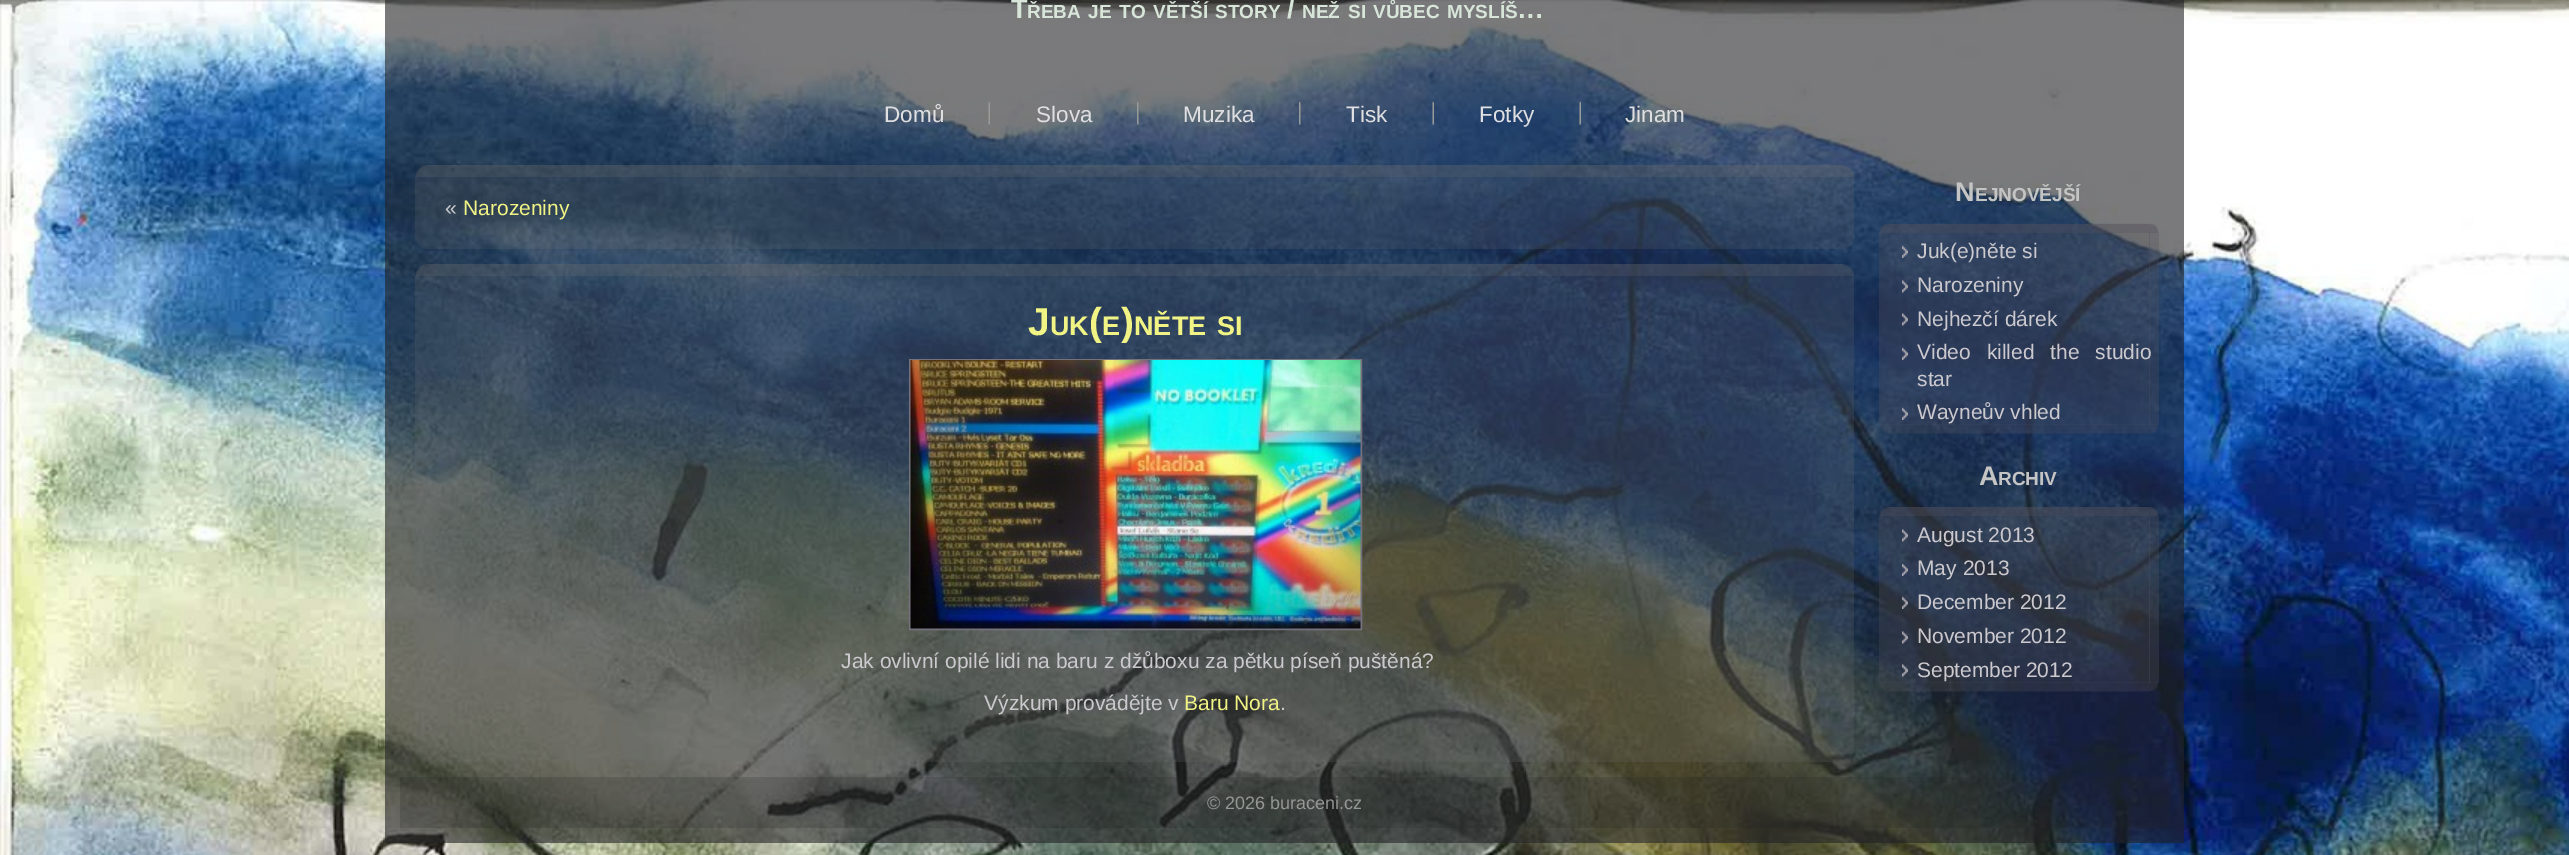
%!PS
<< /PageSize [2569 855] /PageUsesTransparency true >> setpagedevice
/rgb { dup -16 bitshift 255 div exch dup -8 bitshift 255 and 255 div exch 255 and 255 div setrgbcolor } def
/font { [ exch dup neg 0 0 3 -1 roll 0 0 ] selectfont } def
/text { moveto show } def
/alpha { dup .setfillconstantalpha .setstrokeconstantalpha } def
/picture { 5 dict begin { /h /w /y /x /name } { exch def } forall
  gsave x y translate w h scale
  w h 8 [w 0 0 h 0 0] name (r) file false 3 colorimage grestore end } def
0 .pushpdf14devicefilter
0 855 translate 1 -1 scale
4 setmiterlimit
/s1 { /LiberationSans-Bold 27 font 16#D8E6D9 rgb } def
/s2 { /LiberationSans-Bold 19 font 16#D8E6D9 rgb } def
/s3 { /LiberationSans-Regular 22.5 font 16#DFDEE1 rgb } def
/s4 { /LiberationSans-Regular 21 font 16#CBC9CE rgb } def
/s5 { /LiberationSans-Regular 21 font 16#F1F485 rgb } def
/s6 { /LiberationSans-Bold 39 font 16#F1F485 rgb } def
/s7 { /LiberationSans-Bold 27 font 16#F1F485 rgb } def
/s8 { /LiberationSans-Bold 27 font 16#C3C4C3 rgb } def
/s9 { /LiberationSans-Bold 19 font 16#C3C4C3 rgb } def
/s10 { /LiberationSans-Regular 18 font 16#959795 rgb } def
16#FFFFFF rgb
0 0 2569 855 rectfill
(pic1.raw) 0 0 2569 855 picture
0.6 alpha
16#212125 rgb
385 0 1799 843 rectfill
1 alpha
s1
(T) 1011 18 text
s2
(ŘEBA) 1027 18 text
(JE) 1088 18 text
(TO) 1119 18 text
(VĚTŠÍ) 1153 18 text
(STORY) 1215 18 text
s1
(/) 1287 18 text
s2
(NEŽ) 1302 18 text
(SI) 1348 18 text
(VŮBEC) 1373 18 text
(MYSLÍŠ) 1447 18 text
s1
(…) 1517 18 text
s3
(Domů) 884 122 text
(pic2.raw) 988 101 2 24 picture
(Slova) 1036 122 text
(pic3.raw) 1137 101 2 24 picture
(Muzika) 1183 122 text
(pic4.raw) 1299 101 2 24 picture
(Tisk) 1346 122 text
(pic5.raw) 1432 101 2 24 picture
(Fotky) 1479 122 text
(pic6.raw) 1579 101 2 24 picture
(Jinam) 1625 122 text
(pic7.raw) 415 165 1427 84 picture
(pic8.raw) 416 165 1426 12 picture
0.2 alpha
16#6E6E6E rgb
1842 177 12 60 rectfill
1 alpha
(pic9.raw) 1842 165 12 84 picture
(pic10.raw) 1842 165 12 12 picture
0.2 alpha
415 177 1427 60 rectfill
1 alpha
s4
(«) 445 215 text
s5
(Narozeniny) 463 215 text
(pic11.raw) 416 264 1426 498 picture
(pic12.raw) 416 264 1426 12 picture
0.2 alpha
16#6E6E6E rgb
1842 276 12 474 rectfill
1 alpha
(pic13.raw) 1842 264 12 498 picture
(pic14.raw) 1842 264 12 12 picture
0.2 alpha
415 276 1427 474 rectfill
1 alpha
s6
(J) 1028 335 text
s7
(UK) 1050 335 text
s6
(\() 1089 335 text
s7
(E) 1102 335 text
s6
(\)) 1121 335 text
s7
(NĚTE) 1134 335 text
(SI) 1217 335 text
16#75727D rgb
2 setlinewidth
910 360 451 269 rectstroke
(pic15.raw) 910 360 451 269 picture
s4
(Jak ovlivní opilé lidi na baru z džůboxu za pětku píseň puštěná?) 841 668 text
(Výzkum provádějte v) 984 710 text
s5
(Baru Nora) 1184 710 text
s4
(.) 1280 710 text
s8
(N) 1955 201 text
s9
(EJNOVĚJŠÍ) 1975 201 text
(pic16.raw) 1879 223 271 211 picture
(pic17.raw) 1880 224 270 9 picture
0.3 alpha
16#54515B rgb
1879 232 271 193 rectfill
2149 232 10 193 rectfill
1 alpha
(pic18.raw) 2149 224 9 210 picture
(pic19.raw) 2149 224 9 9 picture
(pic20.raw) 1902 245 6 13 picture
s4
(Juk\(e\)něte si) 1917 258 text
(pic21.raw) 1902 280 6 13 picture
(Narozeniny) 1917 292 text
(pic22.raw) 1902 313 6 13 picture
(Nejhezčí dárek) 1917 326 text
(pic23.raw) 1902 347 6 13 picture
1917 359 moveto 10 0 32 (Video killed the studio) widthshow
(star) 1917 386 text
(pic24.raw) 1902 407 6 13 picture
(Wayneův vhled) 1917 419 text
s8
(A) 1979 485 text
s9
(RCHIV) 1998 485 text
(pic25.raw) 1879 507 271 185 picture
(pic26.raw) 1880 507 270 9 picture
0.3 alpha
16#54515B rgb
1879 516 271 167 rectfill
2149 516 10 167 rectfill
1 alpha
(pic27.raw) 2149 507 9 185 picture
(pic28.raw) 2149 507 9 9 picture
(pic29.raw) 1902 529 6 13 picture
s4
(August 2013) 1917 542 text
(pic30.raw) 1902 563 6 13 picture
(May 2013) 1917 575 text
(pic31.raw) 1902 596 6 13 picture
(December 2012) 1917 609 text
(pic32.raw) 1902 631 6 13 picture
(November 2012) 1917 643 text
(pic33.raw) 1902 664 6 13 picture
(September 2012) 1917 677 text
0.2 alpha
16#232323 rgb
400 777 1769 51 rectfill
1 alpha
s10
(© 2026 buraceni.cz) 1207 809 text
.poppdf14devicefilter showpage
